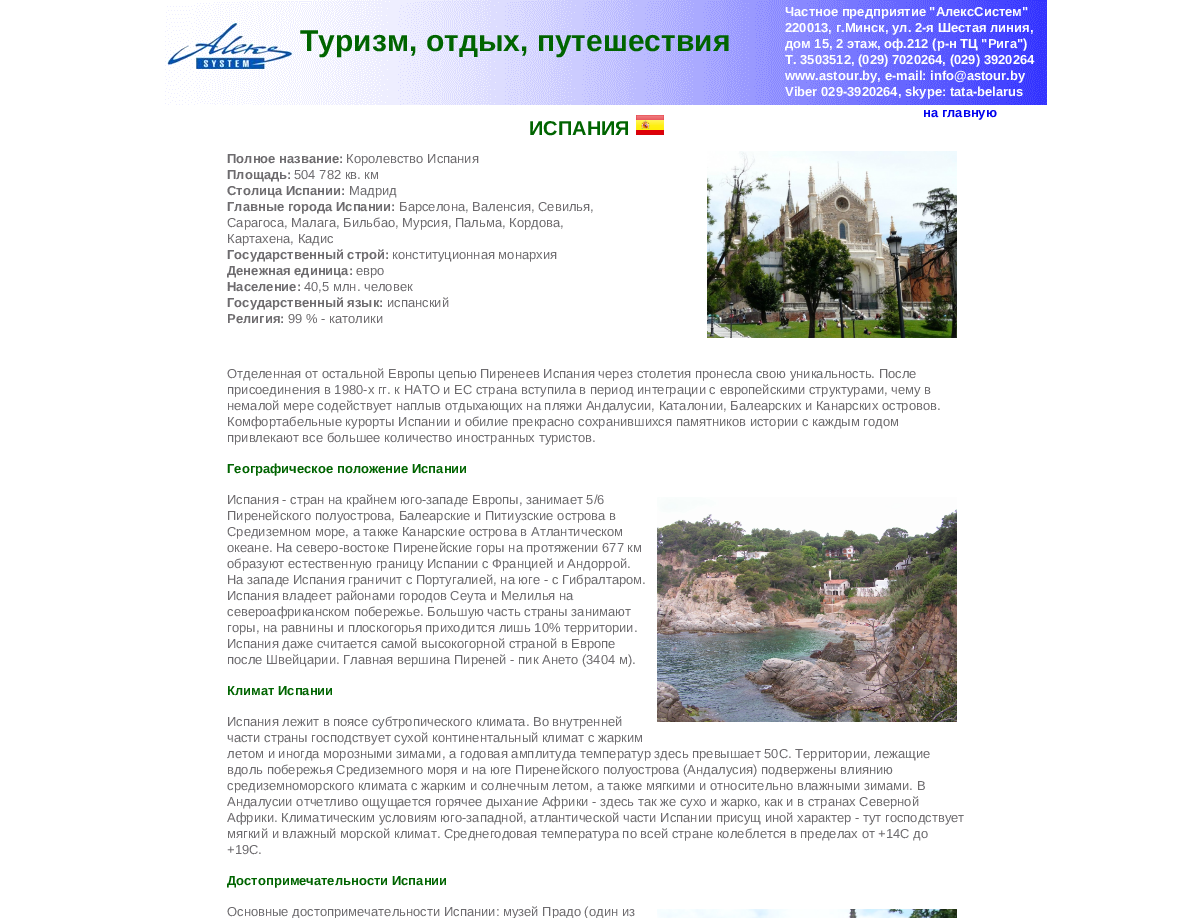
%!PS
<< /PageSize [1193 918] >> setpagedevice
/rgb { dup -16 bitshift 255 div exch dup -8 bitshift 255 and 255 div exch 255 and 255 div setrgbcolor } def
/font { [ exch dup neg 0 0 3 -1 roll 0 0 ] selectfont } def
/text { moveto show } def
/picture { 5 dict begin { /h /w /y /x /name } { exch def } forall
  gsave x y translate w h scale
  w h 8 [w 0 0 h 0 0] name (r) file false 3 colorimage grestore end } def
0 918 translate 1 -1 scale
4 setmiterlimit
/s1 { /LiberationSans-Bold 30 font 16#006400 rgb } def
/s2 { /LiberationSans-Bold 13 font 16#FFFFFF rgb } def
/s3 { /LiberationSans-Bold 13 font 16#0000EE rgb } def
/s4 { /LiberationSans-Bold 20 font 16#006400 rgb } def
/s5 { /LiberationSans-Bold 13 font 16#6D6B6E rgb } def
/s6 { /LiberationSans-Regular 13 font 16#6D6B6E rgb } def
/s7 { /LiberationSans-Bold 13 font 16#006400 rgb } def
16#FFFFFF rgb
0 0 1193 918 rectfill
(pic1.raw) 165 0 882 105 picture
(pic2.raw) 167 23 126 46 picture
s1
(Туризм, отдых, путешествия) 300 51 text
s2
(Частное предприятие "АлексСистем") 785 16 text
(220013, г.Минск, ул. 2-я Шестая линия,) 785 32 text
(дом 15, 2 этаж, оф.212 \(р-н ТЦ "Рига"\)) 785 48 text
(Т. 3503512, \(029\) 7020264, \(029\) 3920264) 785 64 text
(www.astour.by, e-mail: info@astour.by) 785 80 text
(Viber 029-3920264, skype: tata-belarus) 785 96 text
s3
(на главную) 923 117 text
s4
(ИСПАНИЯ) 529 135 text
(pic3.raw) 636 115 28 20 picture
s5
(Полное название:) 227 163 text
s6
(Королевство Испания) 346 163 text
s5
(Площадь:) 227 179 text
s6
(504 782 кв. км) 294 179 text
s5
(Столица Испании:) 227 195 text
s6
(Мадрид) 349 195 text
s5
(Главные города Испании:) 227 211 text
s6
(Барселона, Валенсия, Севилья,) 399 211 text
(Сарагоса, Малага, Бильбао, Мурсия, Пальма, Кордова,) 227 227 text
(Картахена, Кадис) 227 243 text
s5
(Государственный строй:) 227 259 text
s6
(конституционная монархия) 392 259 text
s5
(Денежная единица:) 227 275 text
s6
(евро) 356 275 text
s5
(Население:) 227 291 text
s6
(40,5 млн. человек) 304 291 text
s5
(Государственный язык:) 227 307 text
s6
(испанский) 387 307 text
s5
(Религия:) 227 323 text
s6
(99 % - католики) 288 323 text
(pic4.raw) 707 151 250 187 picture
(Отделенная от остальной Европы цепью Пиренеев Испания через столетия пронесла свою уникальность. После) 227 378 text
(присоединения в 1980-х гг. к НАТО и ЕС страна вступила в период интеграции с европейскими структурами, чему в) 227 394 text
(немалой мере содействует наплыв отдыхающих на пляжи Андалусии, Каталонии, Балеарских и Канарских островов.) 227 410 text
(Комфортабельные курорты Испании и обилие прекрасно сохранившихся памятников истории с каждым годом) 227 426 text
(привлекают все большее количество иностранных туристов.) 227 442 text
s7
(Географическое положение Испании) 227 473 text
s6
(Испания - стран на крайнем юго-западе Европы, занимает 5/6) 227 504 text
(pic5.raw) 657 497 300 225 picture
(Пиренейского полуострова, Балеарские и Питиузские острова в) 227 520 text
(Средиземном море, а также Канарские острова в Атлантическом) 227 536 text
(океане. На северо-востоке Пиренейские горы на протяжении 677 км) 227 552 text
(образуют естественную границу Испании с Францией и Андоррой.) 227 568 text
(На западе Испания граничит с Португалией, на юге - с Гибралтаром.) 227 584 text
(Испания владеет районами городов Сеута и Мелилья на) 227 600 text
(североафриканском побережье. Большую часть страны занимают) 227 616 text
(горы, на равнины и плоскогорья приходится лишь 10% территории.) 227 632 text
(Испания даже считается самой высокогорной страной в Европе) 227 648 text
(после Швейцарии. Главная вершина Пиреней - пик Ането \(3404 м\).) 227 664 text
s7
(Климат Испании) 227 695 text
s6
(Испания лежит в поясе субтропического климата. Во внутренней) 227 726 text
(части страны господствует сухой континентальный климат с жарким) 227 742 text
(летом и иногда морозными зимами, а годовая амплитуда температур здесь превышает 50С. Территории, лежащие) 227 758 text
(вдоль побережья Средиземного моря и на юге Пиренейского полуострова \(Андалусия\) подвержены влиянию) 227 774 text
(средиземноморского климата с жарким и солнечным летом, а также мягкими и относительно влажными зимами. В) 227 790 text
(Андалусии отчетливо ощущается горячее дыхание Африки - здесь так же сухо и жарко, как и в странах Северной) 227 806 text
(Африки. Климатическим условиям юго-западной, атлантической части Испании присущ иной характер - тут господствует) 227 822 text
(мягкий и влажный морской климат. Среднегодовая температура по всей стране колеблется в пределах от +14С до) 227 838 text
(+19С.) 227 854 text
s7
(Достопримечательности Испании) 227 885 text
s6
(Основные достопримечательности Испании: музей Прадо \(один из) 227 916 text
(pic6.raw) 657 909 300 9 picture
showpage
